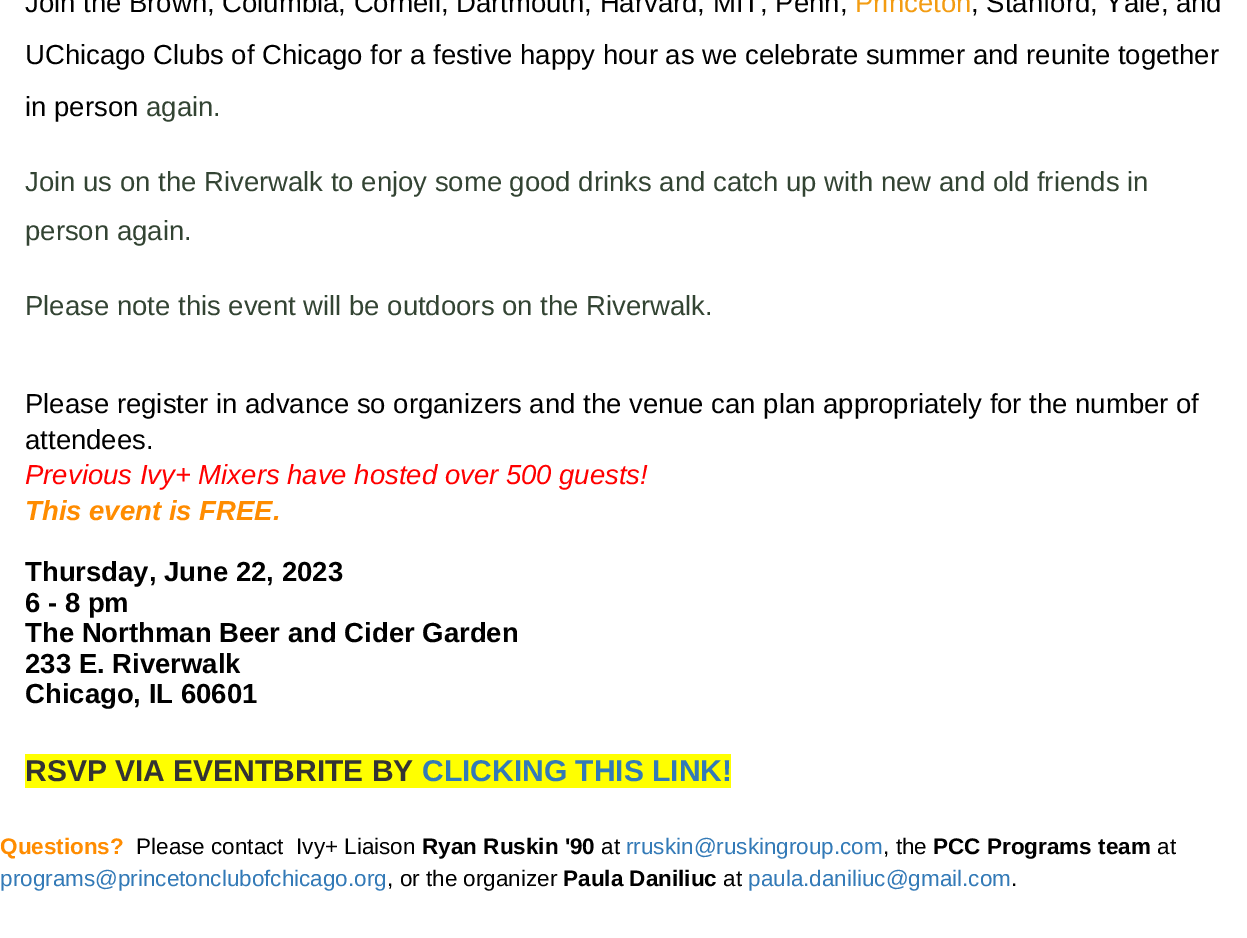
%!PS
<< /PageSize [1247 938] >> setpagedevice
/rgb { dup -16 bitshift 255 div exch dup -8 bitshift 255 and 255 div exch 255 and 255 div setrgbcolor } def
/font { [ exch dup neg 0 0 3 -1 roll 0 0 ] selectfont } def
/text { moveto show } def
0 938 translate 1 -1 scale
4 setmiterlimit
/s1 { /LiberationSans-Regular 27.5 font 16#000000 rgb } def
/s2 { /LiberationSans-Regular 27.5 font 16#F39C12 rgb } def
/s3 { /LiberationSans-Regular 27.5 font 16#334433 rgb } def
/s4 { /LiberationSans-Italic 27.5 font 16#FF0000 rgb } def
/s5 { /LiberationSans-BoldItalic 27.5 font 16#FF8C00 rgb } def
/s6 { /LiberationSans-Bold 27.5 font 16#000000 rgb } def
/s7 { /LiberationSans-Bold 30 font 16#333333 rgb } def
/s8 { /LiberationSans-Bold 30 font 16#337AB7 rgb } def
/s9 { /LiberationSans-Bold 22.5 font 16#FF8C00 rgb } def
/s10 { /LiberationSans-Regular 22.5 font 16#000000 rgb } def
/s11 { /LiberationSans-Bold 22.5 font 16#000000 rgb } def
/s12 { /LiberationSans-Regular 22.5 font 16#337AB7 rgb } def
16#FFFFFF rgb
0 0 1247 938 rectfill
s1
(Join the Brown, Columbia, Cornell, Dartmouth, Harvard, MIT, Penn,) 25 12 text
s2
(Princeton) 855 12 text
s1
(, Stanford, Yale, and) 971 12 text
(UChicago Clubs of Chicago for a festive happy hour as we celebrate summer and reunite together) 25 64 text
(in person) 25 116 text
s3
(again.) 146 116 text
(Join us on the Riverwalk to enjoy some good drinks and catch up with new and old friends in) 25 191 text
(person again.) 25 240 text
(Please note this event will be outdoors on the Riverwalk.) 25 315 text
s1
(Please register in advance so organizers and the venue can plan appropriately for the number of) 25 413 text
(attendees.) 25 449 text
s4
(Previous Ivy+ Mixers have hosted over 500 guests!) 25 484 text
s5
(This event is FREE.) 25 520 text
s6
(Thursday, June 22, 2023) 25 581 text
(6 - 8 pm) 25 612 text
(The Northman Beer and Cider Garden) 25 642 text
(233 E. Riverwalk) 25 673 text
(Chicago, IL 60601) 25 703 text
16#FFFF00 rgb
25 754 706 34 rectfill
s7
(RSVP VIA EVENTBRITE BY) 25 781 text
s8
(CLICKING THIS LINK!) 422 781 text
s9
(Questions?) 0 854 text
s10
(Please contact  Ivy+ Liaison) 136 854 text
s11
(Ryan Ruskin '90) 422 854 text
s10
(at) 601 854 text
s12
(rruskin@ruskingroup.com) 626 854 text
s10
(, the) 883 854 text
s11
(PCC Programs team) 933 854 text
s10
(at) 1157 854 text
s12
(programs@princetonclubofchicago.org) 0 886 text
s10
(, or the organizer) 387 886 text
s11
(Paula Daniliuc) 563 886 text
s10
(at) 723 886 text
s12
(paula.daniliuc@gmail.com) 748 886 text
s10
(.) 1011 886 text
showpage
